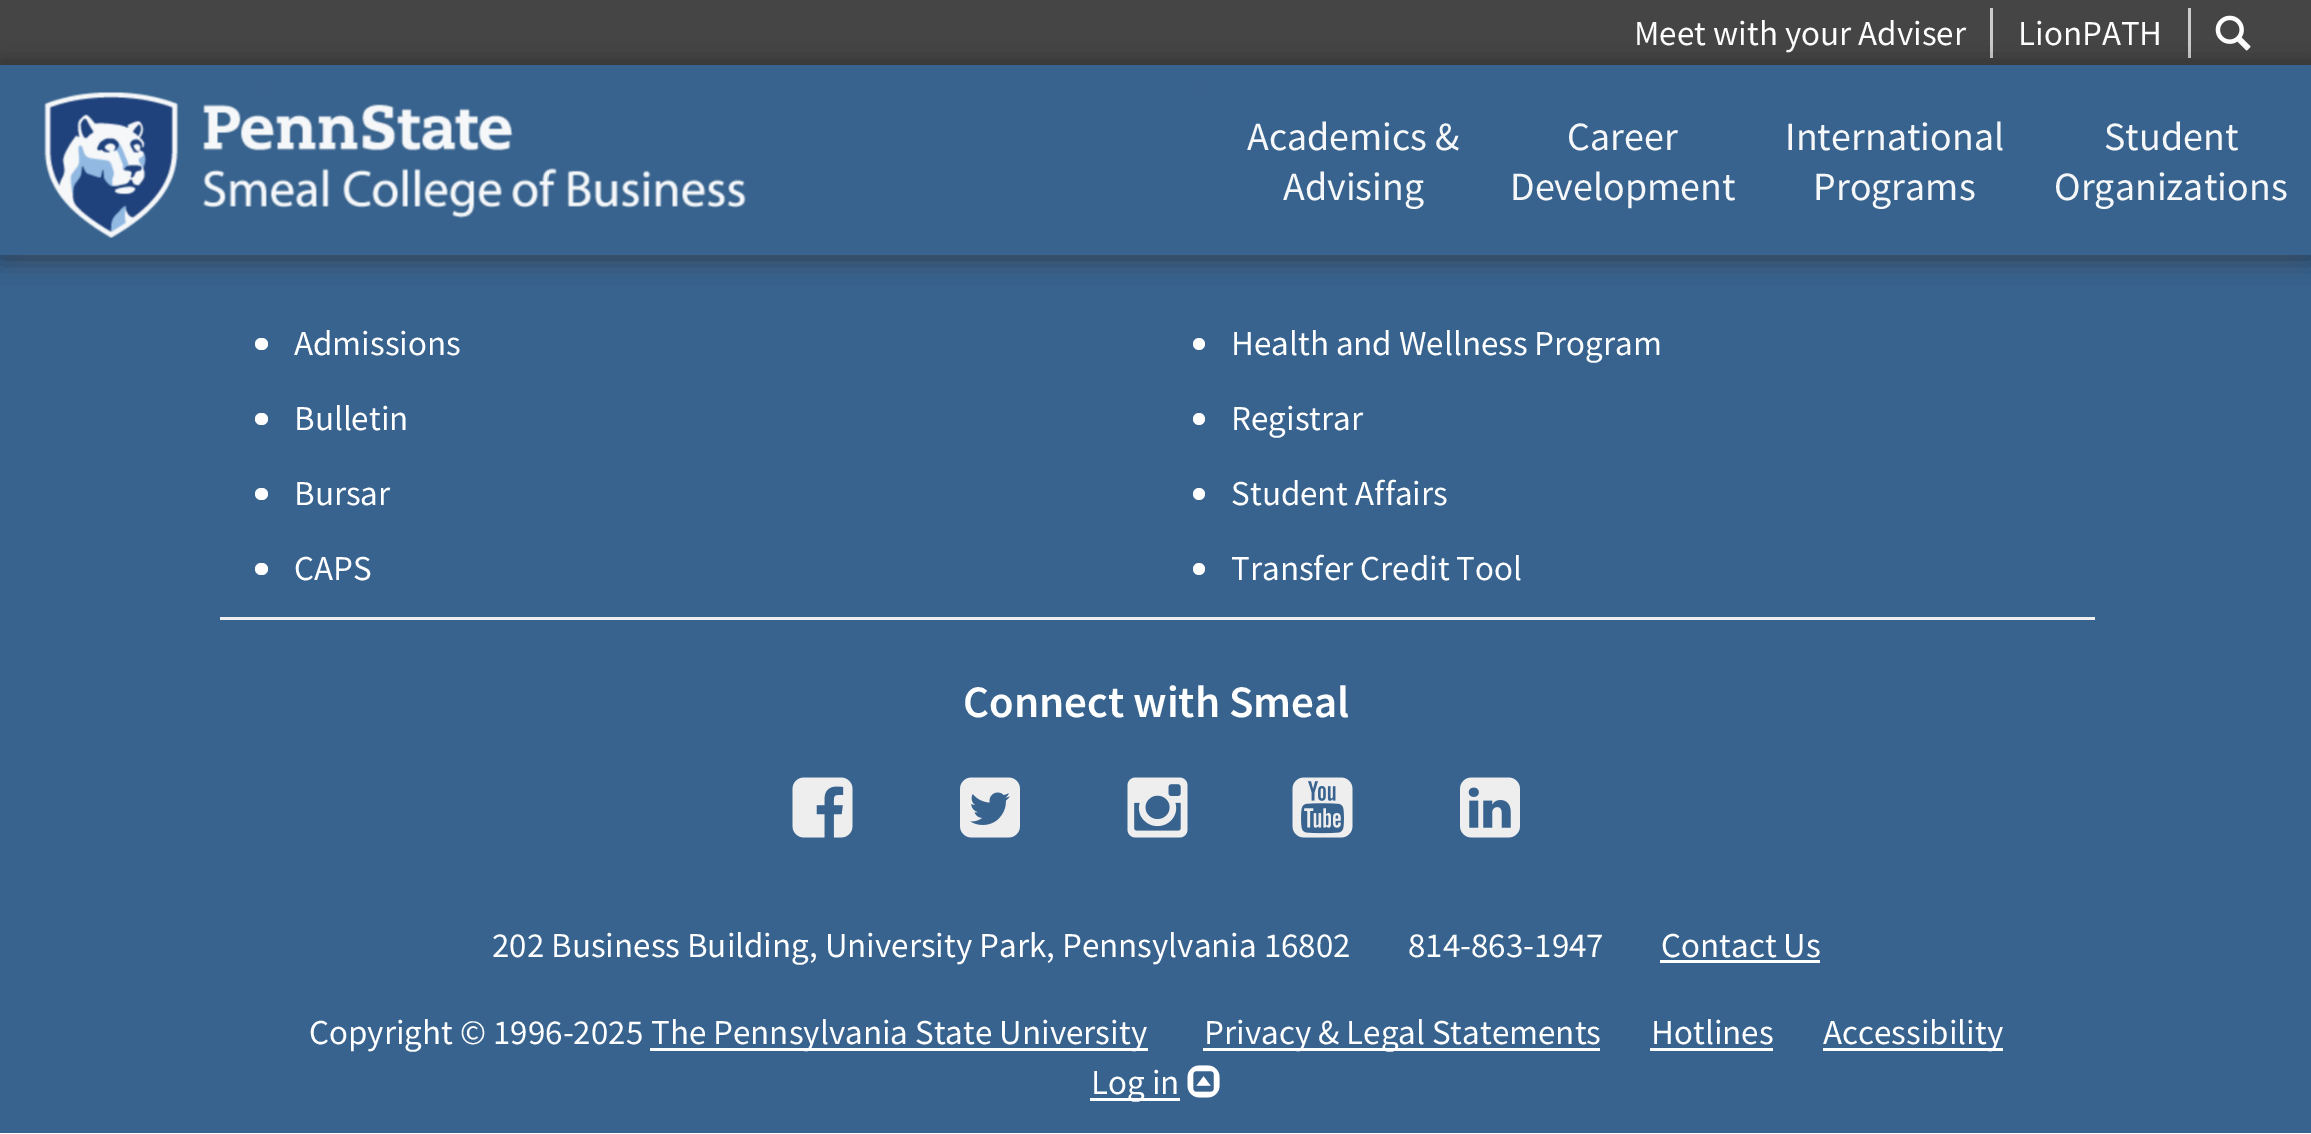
%!PS
<< /PageSize [2311 1134] /PageUsesTransparency true >> setpagedevice
/rgb { dup -16 bitshift 255 div exch dup -8 bitshift 255 and 255 div exch 255 and 255 div setrgbcolor } def
/font { [ exch dup neg 0 0 3 -1 roll 0 0 ] selectfont } def
/text { moveto show } def
/alpha { dup .setfillconstantalpha .setstrokeconstantalpha } def
/circle { newpath 0 360 arc closepath } def
/roundrect { 5 dict begin { /r /h /w /y /x } { exch def } forall
  x r add y moveto x w add y 2 copy h add r arct x w add y h add x 1 index r arct
  x y h add x y r arct x y 2 copy exch w add exch r arct closepath end } def
/shadow { 12 dict begin { /a /b /q /h /w /y /x } { exch def } forall gsave /was 0 def
  9 -2 -9 { dup b mul 4 div /e exch def 1 sub .425 mul 2.718 exch exp 1 add a .99 .min exch div /now exch def
    1 1 now sub 1 was sub div sub alpha /was now def
    w h .min e 2 mul add 0 gt { x e sub y e sub w e 2 mul add h e 2 mul add
      q e add b .6 mul add w h .min 2 div e add .min 0 .max roundrect fill } if } for grestore end } def
/picture { 5 dict begin { /h /w /y /x /name } { exch def } forall
  gsave x y translate w h scale
  w h 8 [w 0 0 h 0 0] name (r) file false 3 colorimage grestore end } def
0 .pushpdf14devicefilter
0 1134 translate 1 -1 scale
4 setmiterlimit
/s1 { /SourceSansPro-Regular 35 font 16#FFFFFF rgb } def
/s2 { /SourceSansPro-Regular 40 font 16#F5F7F9 rgb } def
/s3 { /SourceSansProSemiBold-SemiBold 45 font 16#FFFFFF rgb } def
16#FFFFFF rgb
0 0 2311 1134 rectfill
16#454545 rgb
0 0 2311 65 rectfill
16#CCCCCC rgb
1990 8 3 50 rectfill
s1
(Meet with your Adviser) 1634 45 text
16#CCCCCC rgb
2188 8 3 50 rectfill
s1
(LionPATH) 2018 45 text
(pic1.raw) 2215 15 36 36 picture
16#38638E rgb
0 65 2311 1068 rectfill
16#FFFFFF rgb
261.5 86.5 6.5 circle fill
1193 80 12 13 6 roundrect fill
gsave
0 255 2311 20 rectclip
16#808080 rgb
20 95 2273 150 0 15 0.95 shadow
grestore
0.95 alpha
16#38638E rgb
255 80 950 13 rectfill
gsave
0 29 moveto 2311 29 lineto 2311 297 lineto 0 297 lineto closepath 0 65 moveto 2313 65 lineto 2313 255 lineto 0 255 lineto closepath eoclip newpath
1 alpha
16#000000 rgb
0 68 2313 190 0 12.5 0.47 shadow
grestore
255 80 950 13 rectfill
1 alpha
(pic2.raw) 44 91 702 148 picture
s2
(Academics &) 1247 150 text
(Advising) 1283 200 text
(Career) 1567 150 text
(Development) 1510 200 text
(International) 1785 150 text
(Programs) 1813 200 text
(Student) 2104 150 text
(Organizations) 2054 200 text
16#FFFFFF rgb
255 338 13 12 6 roundrect fill
s1
(Admissions) 294 355 text
255 413 13 12 6 roundrect fill
(Bulletin) 294 430 text
255 488 13 12 6 roundrect fill
(Bursar) 294 505 text
255 563 13 12 6 roundrect fill
(CAPS) 294 580 text
1199 344 6 circle fill
(Health and Wellness Program) 1231 355 text
1199 419 6 circle fill
(Registrar) 1231 430 text
1199 494 6 circle fill
(Student Affairs) 1231 505 text
1199 569 6 circle fill
(Transfer Credit Tool) 1231 580 text
16#EEEEEE rgb
220 617 1875 3 rectfill
s3
(Connect with Smeal) 963 717 text
(pic3.raw) 792 777 61 61 picture
(pic4.raw) 960 777 60 61 picture
(pic5.raw) 1127 777 61 61 picture
(pic6.raw) 1292 777 61 61 picture
(pic7.raw) 1460 777 60 61 picture
s1
(202 Business Building, University Park, Pennsylvania 16802) 492 957 text
(814-863-1947) 1408 957 text
(Contact Us) 1661 957 text
1660 960 160 3 rectfill
(Copyright © 1996-2025) 309 1044 text
650 1048 498 3 rectfill
(The Pennsylvania State University) 651 1044 text
1203 1048 397 3 rectfill
(Privacy & Legal Statements) 1204 1044 text
(Hotlines) 1651 1044 text
1650 1048 123 3 rectfill
1823 1048 180 3 rectfill
(Accessibility) 1823 1044 text
1090 1098 90 3 rectfill
(Log in) 1091 1094 text
(pic8.raw) 1187 1065 33 33 picture
.poppdf14devicefilter showpage
